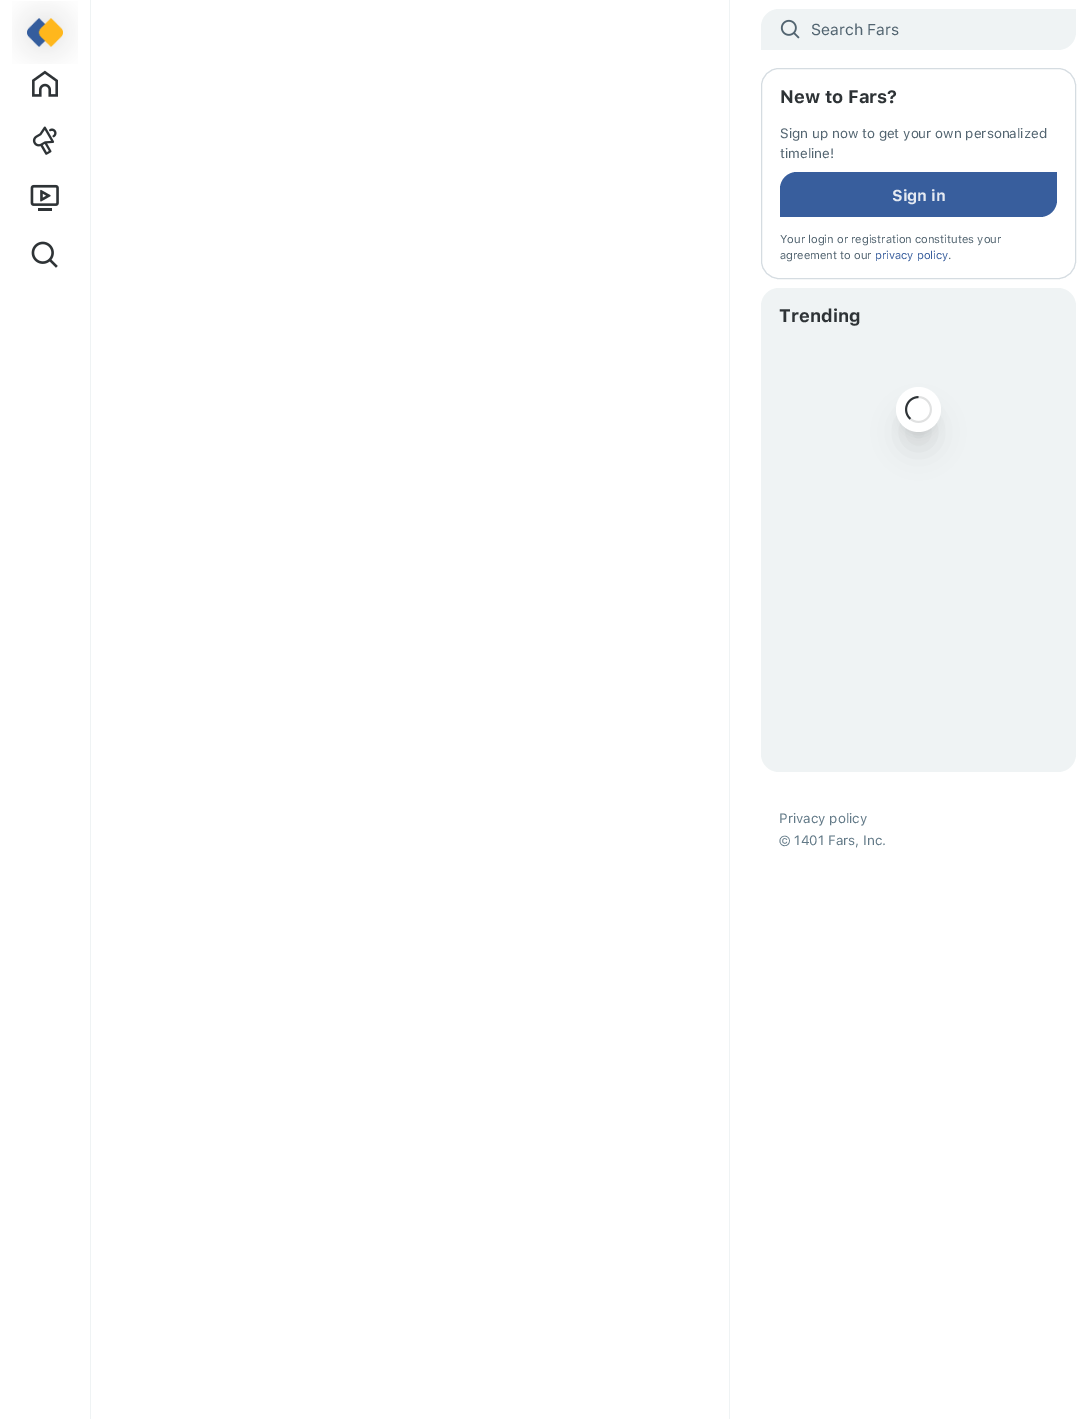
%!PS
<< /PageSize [1085 1419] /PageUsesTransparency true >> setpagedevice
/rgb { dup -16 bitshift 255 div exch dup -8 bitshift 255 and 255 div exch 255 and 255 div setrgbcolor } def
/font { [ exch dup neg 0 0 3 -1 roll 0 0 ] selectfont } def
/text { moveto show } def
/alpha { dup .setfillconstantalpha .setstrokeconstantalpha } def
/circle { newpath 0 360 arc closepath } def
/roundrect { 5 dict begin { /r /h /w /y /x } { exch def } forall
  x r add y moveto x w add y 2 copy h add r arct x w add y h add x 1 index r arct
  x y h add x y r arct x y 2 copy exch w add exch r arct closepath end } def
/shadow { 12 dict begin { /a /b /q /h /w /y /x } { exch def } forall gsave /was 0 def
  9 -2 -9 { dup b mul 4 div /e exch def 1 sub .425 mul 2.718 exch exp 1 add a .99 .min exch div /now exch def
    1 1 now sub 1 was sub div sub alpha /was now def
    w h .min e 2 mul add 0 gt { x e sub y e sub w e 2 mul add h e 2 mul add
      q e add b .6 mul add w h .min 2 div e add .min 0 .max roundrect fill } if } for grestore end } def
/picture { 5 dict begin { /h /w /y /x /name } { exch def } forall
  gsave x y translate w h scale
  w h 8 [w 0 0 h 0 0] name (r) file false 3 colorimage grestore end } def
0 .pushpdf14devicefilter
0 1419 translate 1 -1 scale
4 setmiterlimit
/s1 { /SFProText-Regular 15.75 font 16#526470 rgb } def
/s2 { /SFProText-Bold 18 font 16#2E3336 rgb } def
/s3 { /SFProText-Regular 13.5 font 16#526470 rgb } def
/s4 { /SFProText-Bold 15.75 font 16#E5EAF2 rgb } def
/s5 { /SFProText-Regular 11.25 font 16#526470 rgb } def
/s6 { /SFProText-Regular 11.25 font 16#385E9D rgb } def
/s7 { /SFProText-Regular 13.5 font 16#627987 rgb } def
16#FFFFFF rgb
0 0 1085 1419 rectfill
(pic1.raw) 12 1 66 63 picture
(pic2.raw) 32 70 26 27 picture
(pic3.raw) 32 126 25 29 picture
(pic4.raw) 30 184 29 27 picture
(pic5.raw) 31 241 27 27 picture
16#EFF3F4 rgb
729 0 1 1419 rectfill
90 0 1 1419 rectfill
779 9 moveto 1076 9 lineto 1076 32 lineto 1076 42 1068 50 1058 50 curveto 761 50 lineto 761 27 lineto 761 17 769 9 779 9 curveto closepath fill
(pic6.raw) 780 19 20 20 picture
s1
(Search Fars) 811 35 text
16#D5DCE1 rgb
761.5 68.5 314 210 17.5 roundrect stroke
s2
(New to Fars?) 780 103 text
s3
(Sign up now to get your own personalized) 780 138 text
(timeline!) 780 158 text
16#385E9D rgb
797 172 moveto 1057 172 lineto 1057 200 lineto 1057 209.5 1049.5 217 1040 217 curveto 780 217 lineto 780 189 lineto 780 179.5 787.5 172 797 172 curveto closepath fill
s4
(Sign in) 892 201 text
s5
(Your login or registration constitutes your) 780 243 text
(agreement to our) 780 259 text
s6
(privacy policy) 875 259 text
s5
(.) 948 259 text
16#EFF3F4 rgb
761 288 315 484 18 roundrect fill
s2
(Trending) 779 322 text
16#000000 rgb
903 403 31 31 15.5 5.5 0.1 shadow
902 415 33 34 16.5 14 0.1 shadow
16#FFFFFF rgb
918.5 409.5 22.5 circle fill
(pic7.raw) 905 396 27 27 picture
s7
(Privacy policy) 779 823 text
(© 1401 Fars, Inc.) 779 845 text
.poppdf14devicefilter showpage
